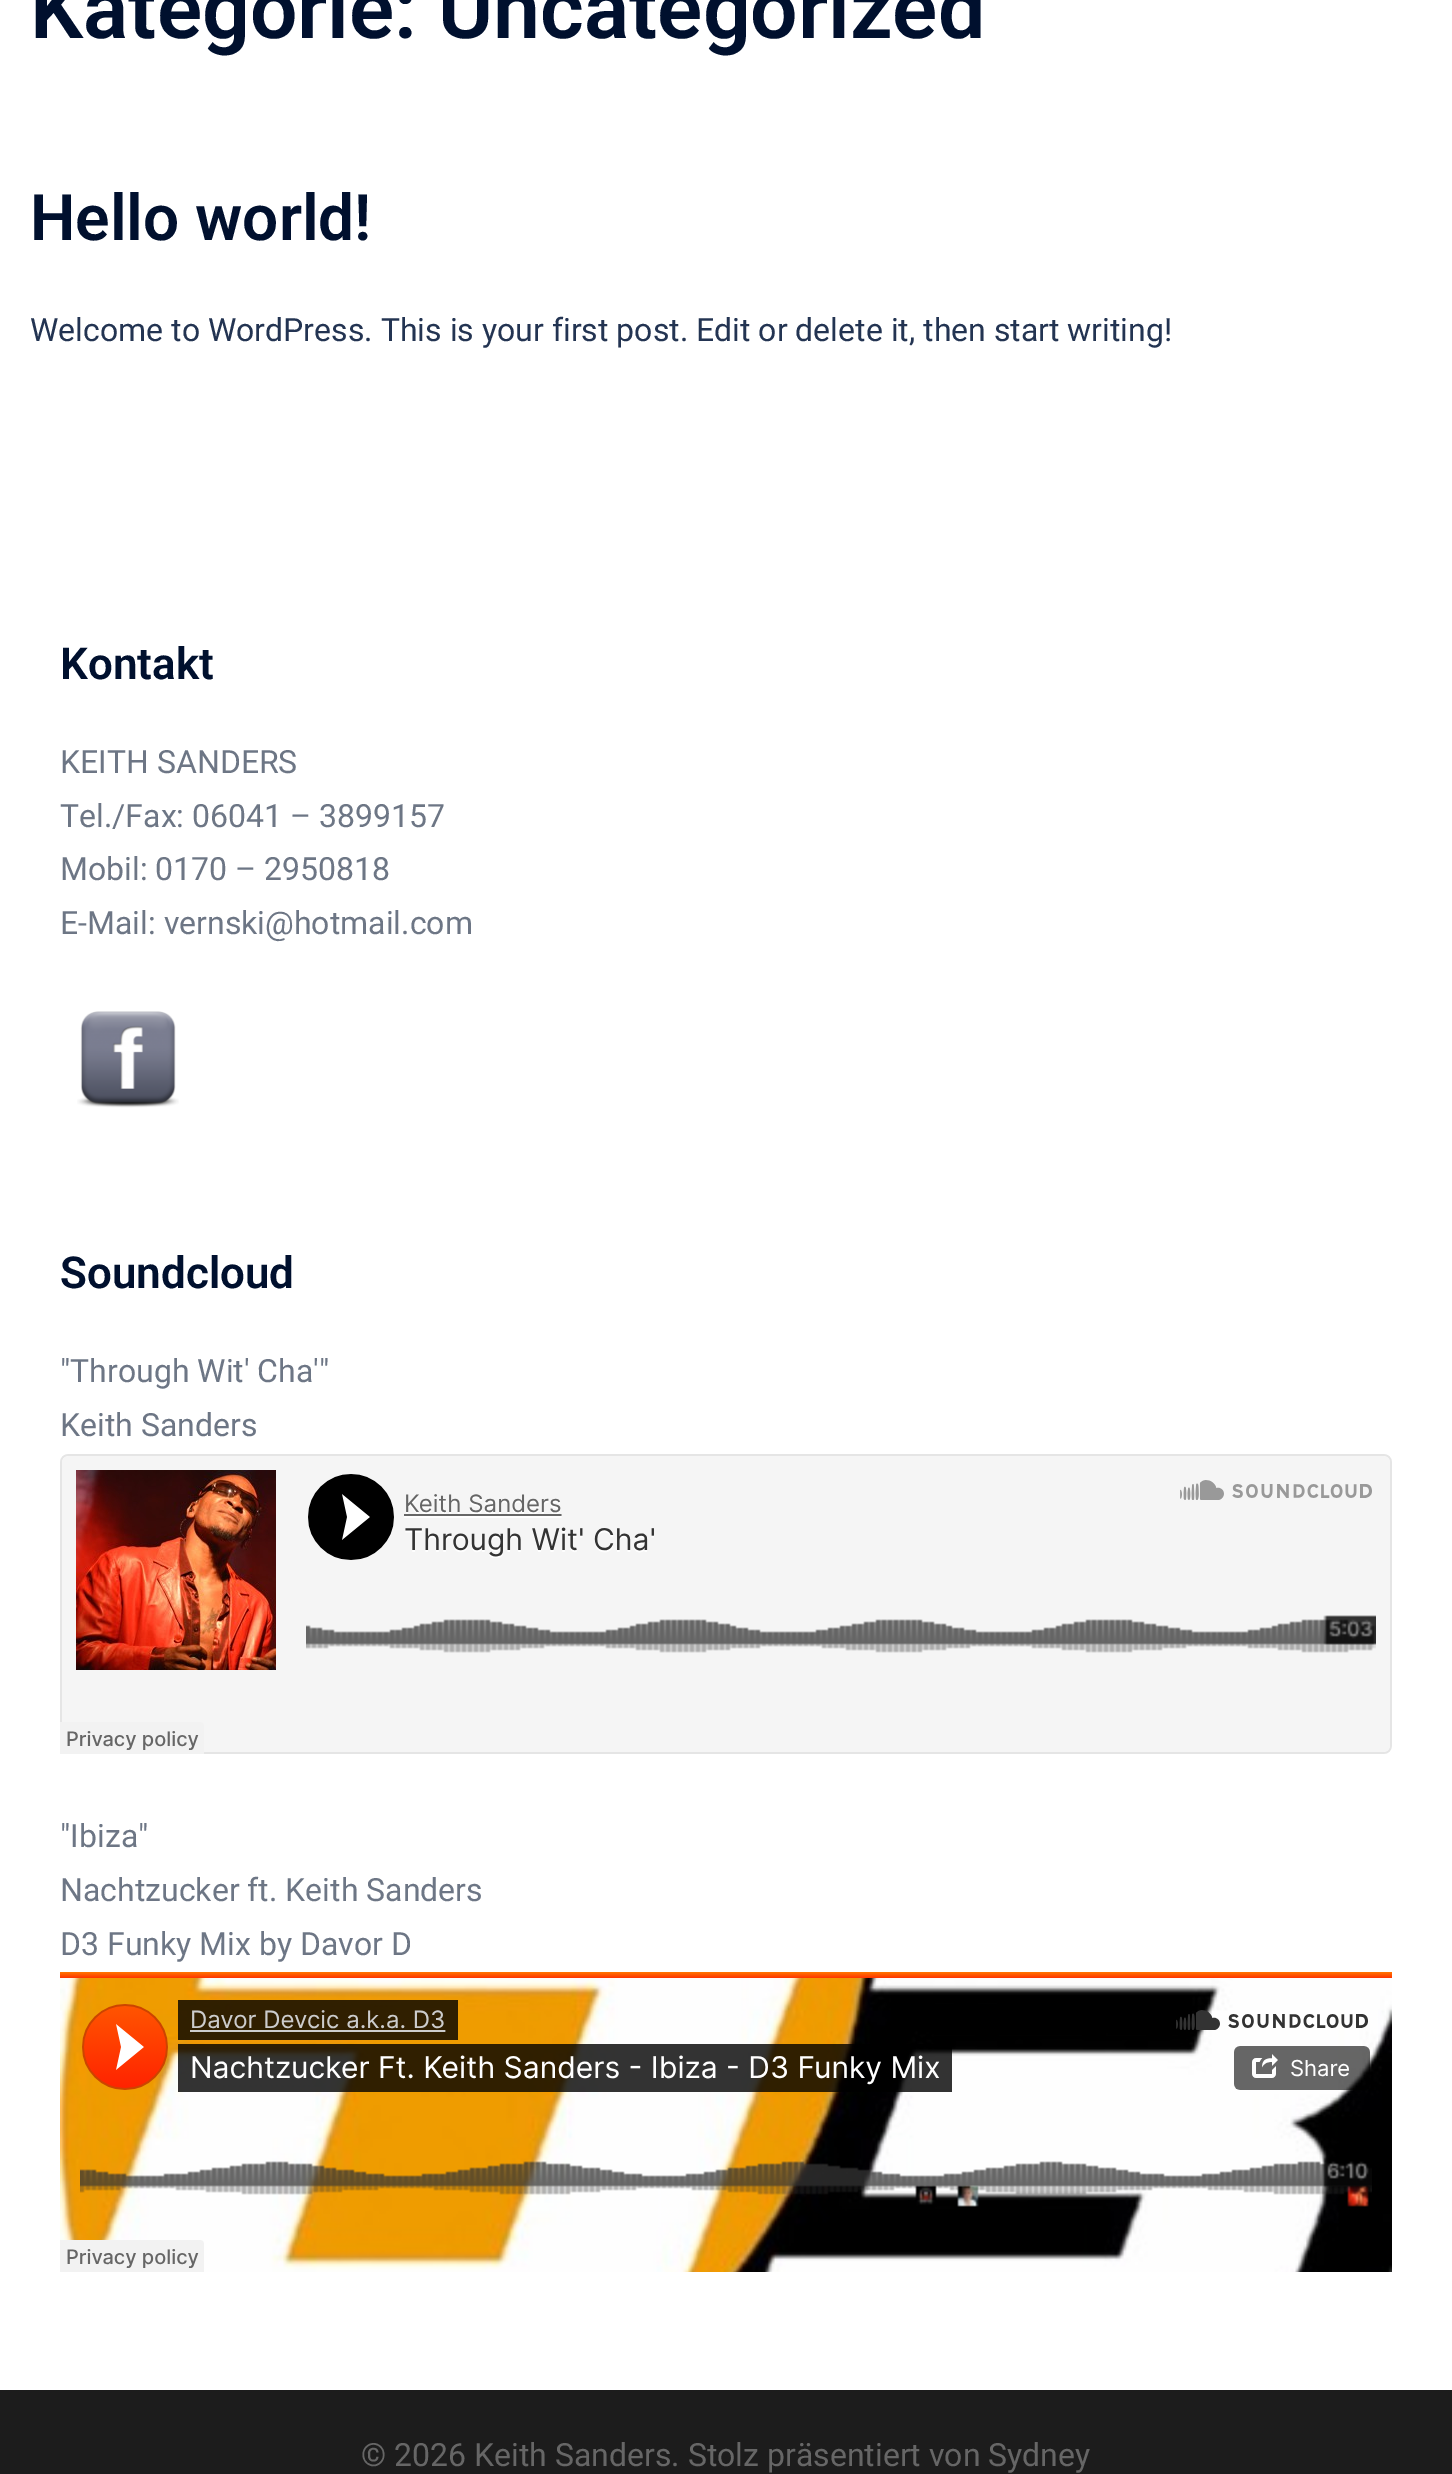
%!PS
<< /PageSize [1452 2474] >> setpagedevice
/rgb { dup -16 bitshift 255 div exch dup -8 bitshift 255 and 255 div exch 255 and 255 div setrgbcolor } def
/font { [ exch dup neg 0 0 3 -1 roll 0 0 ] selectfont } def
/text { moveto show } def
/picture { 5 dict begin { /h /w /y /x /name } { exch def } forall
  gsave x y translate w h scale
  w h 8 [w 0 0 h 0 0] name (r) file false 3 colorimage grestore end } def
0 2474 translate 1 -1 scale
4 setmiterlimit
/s1 { /Roboto-SemiBold 84 font 16#00102E rgb } def
/s2 { /Roboto-SemiBold 64 font 16#00102E rgb } def
/s3 { /Roboto-Regular 32 font 16#233452 rgb } def
/s4 { /Roboto-SemiBold 44 font 16#00102E rgb } def
/s5 { /Roboto-Regular 32 font 16#6D7685 rgb } def
/s6 { /Roboto-Regular 32 font 16#666666 rgb } def
16#FFFFFF rgb
0 0 1452 2474 rectfill
s1
(Kategorie: Uncategorized) 30 38 text
s2
(Hello world!) 30 240 text
s3
(Welcome to WordPress. This is your first post. Edit or delete it, then start writing!) 30 341 text
s4
(Kontakt) 60 679 text
s5
(KEITH SANDERS) 60 773 text
(Tel./Fax: 06041 – 3899157) 60 827 text
(Mobil: 0170 – 2950818) 60 880 text
(E-Mail: vernski@hotmail.com) 60 934 text
(pic1.raw) 77 1011 102 97 picture
s4
(Soundcloud) 60 1288 text
s5
("Through Wit' Cha'") 60 1382 text
(Keith Sanders) 60 1436 text
(pic2.raw) 60 1454 1332 300 picture
("Ibiza") 60 1847 text
(Nachtzucker ft. Keith Sanders) 60 1901 text
(D3 Funky Mix by Davor D) 60 1955 text
(pic3.raw) 60 1972 1332 300 picture
16#1C1C1C rgb
0 2390 1452 84 rectfill
s6
(© 2026 Keith Sanders. Stolz präsentiert von Sydney) 361 2466 text
showpage
